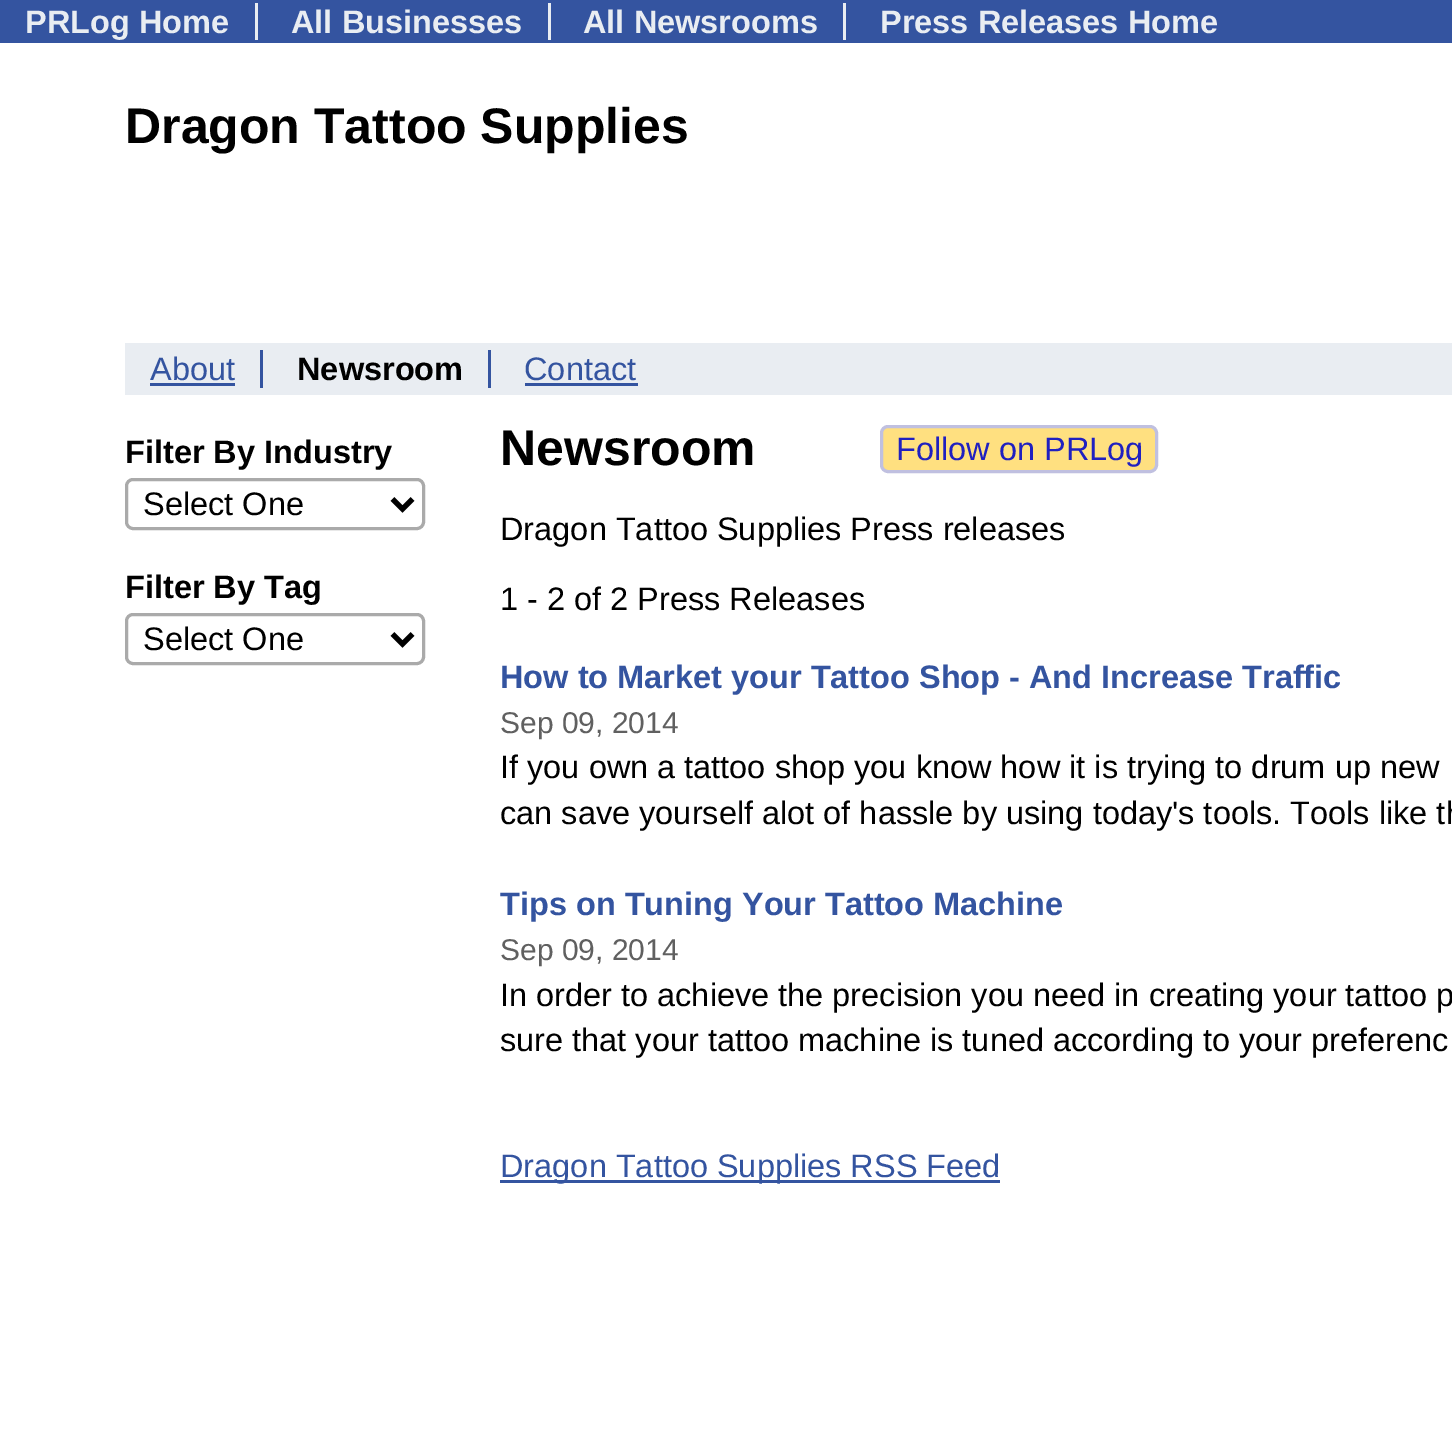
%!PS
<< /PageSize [1452 1454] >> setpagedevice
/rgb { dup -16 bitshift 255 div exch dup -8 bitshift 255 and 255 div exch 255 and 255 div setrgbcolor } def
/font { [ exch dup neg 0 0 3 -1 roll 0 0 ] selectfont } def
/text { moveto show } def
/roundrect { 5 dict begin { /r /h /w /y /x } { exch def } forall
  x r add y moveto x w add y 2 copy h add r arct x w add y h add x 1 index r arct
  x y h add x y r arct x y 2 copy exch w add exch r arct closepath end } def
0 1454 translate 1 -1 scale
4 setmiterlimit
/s1 { /LiberationSans-Bold 32.5 font 16#E9EDF2 rgb } def
/s2 { /LiberationSans-Bold 50 font 16#000000 rgb } def
/s3 { /LiberationSans-Regular 32.5 font 16#3454A0 rgb } def
/s4 { /LiberationSans-Bold 32.5 font 16#000000 rgb } def
/s5 { /LiberationSans-Regular 32.5 font 16#000000 rgb } def
/s6 { /LiberationSans-Regular 32.5 font 16#2020C0 rgb } def
/s7 { /LiberationSans-Bold 32.5 font 16#3454A0 rgb } def
/s8 { /LiberationSans-Regular 30 font 16#606060 rgb } def
16#FFFFFF rgb
0 0 1452 1454 rectfill
16#3454A0 rgb
0 0 1452 43 rectfill
16#E9EDF2 rgb
255 3 3 37 rectfill
s1
(PRLog Home) 25 33 text
548 3 3 37 rectfill
(All Businesses) 291 33 text
843 3 3 37 rectfill
(All Newsrooms) 583 33 text
(Press Releases Home) 880 33 text
s2
(Dragon Tattoo Supplies) 125 143 text
16#E9EDF2 rgb
125 343 1327 52 rectfill
16#3454A0 rgb
260 350 3 38 rectfill
s3
(About) 150 380 text
150 383 85 3 rectfill
488 350 3 38 rectfill
s4
(Newsroom) 297 380 text
s3
(Contact) 524 380 text
525 383 113 3 rectfill
s4
(Filter By Industry) 125 463 text
16#AAAAAA rgb
3 setlinewidth
126.5 479.5 297 49 6.5 roundrect stroke
16#000000 rgb
5 setlinewidth
392.5 499 moveto 402.5 509 lineto 412.5 499 lineto stroke
s5
(Select One) 143 515 text
s4
(Filter By Tag) 125 598 text
16#AAAAAA rgb
3 setlinewidth
126.5 614.5 297 49 6.5 roundrect stroke
16#000000 rgb
5 setlinewidth
392.5 634 moveto 402.5 644 lineto 412.5 634 lineto stroke
s5
(Select One) 143 650 text
s2
(Newsroom) 500 465 text
16#FFE080 rgb
881.5 426.5 275 45 6.5 roundrect gsave fill grestore
16#C0C0E0 rgb
3 setlinewidth
stroke
s6
(Follow on PRLog) 896 460 text
s5
(Dragon Tattoo Supplies Press releases) 500 540 text
(1 - 2 of 2 Press Releases) 500 610 text
s7
(How to Market your Tattoo Shop - And Increase Traffic) 500 688 text
s8
(Sep 09, 2014) 500 733 text
s5
(If you own a tattoo shop you know how it is trying to drum up new) 500 778 text
(can save yourself alot of hassle by using today's tools. Tools like th) 500 824 text
s7
(Tips on Tuning Your Tattoo Machine) 500 915 text
s8
(Sep 09, 2014) 500 960 text
s5
(In order to achieve the precision you need in creating your tattoo p) 500 1006 text
(sure that your tattoo machine is tuned according to your preferenc) 500 1051 text
16#3454A0 rgb
500 1180 500 3 rectfill
(Dragon Tattoo Supplies RSS Feed) 500 1177 text
showpage
